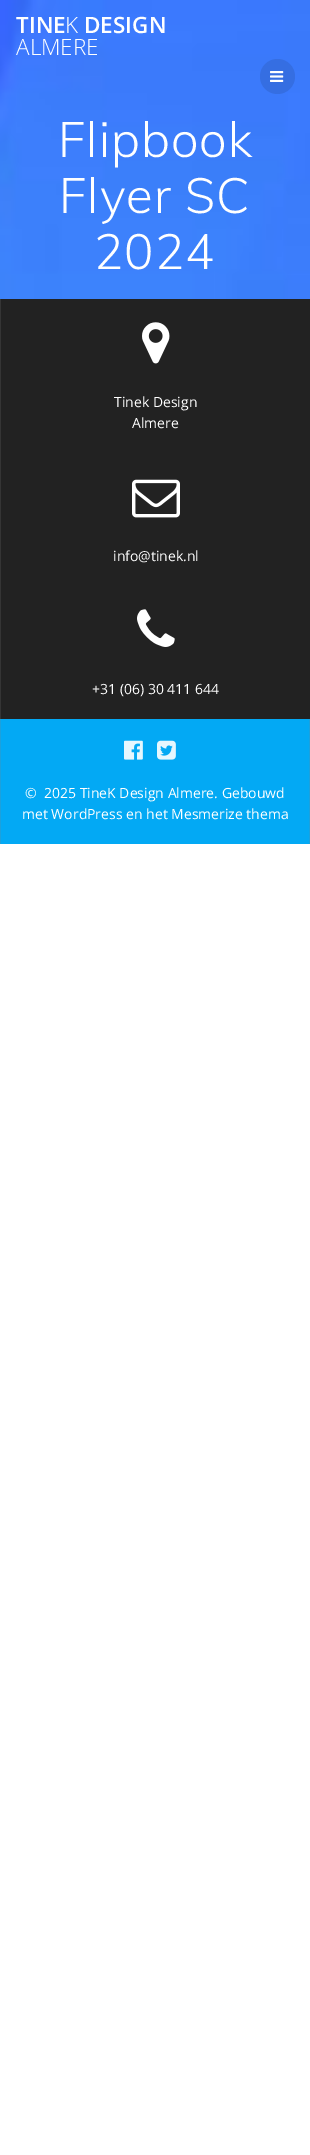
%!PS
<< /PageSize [310 2155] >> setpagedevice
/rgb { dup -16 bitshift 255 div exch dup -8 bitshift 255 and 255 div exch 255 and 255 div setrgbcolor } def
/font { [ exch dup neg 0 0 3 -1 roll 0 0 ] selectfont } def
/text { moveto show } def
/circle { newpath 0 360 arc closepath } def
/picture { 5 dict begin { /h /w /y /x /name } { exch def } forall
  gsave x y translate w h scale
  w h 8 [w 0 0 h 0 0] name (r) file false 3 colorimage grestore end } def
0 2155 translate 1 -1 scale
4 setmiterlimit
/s1 { /OpenSans-SemiBold 22.5 font 16#FFFFFF rgb } def
/s2 { /OpenSans-Light 22.5 font 16#FFFFFF rgb } def
/s3 { /OpenSans-Regular 14 font 16#FFFFFF rgb } def
16#FFFFFF rgb
0 0 310 2155 rectfill
(pic2.raw) 0 0 310 299 picture
s1
(TINE) 16 33 text
s2
(K) 65 33 text
s1
(DESIGN) 84 33 text
s2
(ALMERE) 16 55 text
16#356EE2 rgb
277.5 76.5 17.5 circle fill
(pic1.raw) 270 71 14 11 picture
/Muli-Light 49 font
16#FFFFFF rgb
58 157 moveto 1 0 (Flipbook) ashow
59 213 moveto 1 0 (Flyer SC) ashow
94 269 moveto 1 0 (2024) ashow
16#222222 rgb
1 299 309 420 rectfill
16#353535 rgb
0 299 1 420 rectfill
(pic3.raw) 142 322 28 42 picture
s3
(Tinek Design) 114 407 text
(Almere) 132 428 text
(pic4.raw) 132 479 48 39 picture
(info@tinek.nl) 113 561 text
(pic5.raw) 137 609 38 38 picture
(+31 \(06\) 30 411 644) 92 694 text
16#03A9F4 rgb
1 719 308 125 rectfill
16#1CA1DD rgb
309 719 1 125 rectfill
0 719 1 125 rectfill
(pic6.raw) 124 740 19 20 picture
(pic7.raw) 157 740 19 20 picture
s3
(©  2025 TineK Design Almere. Gebouwd) 25 798 text
(met WordPress en het Mesmerize thema) 22 819 text
showpage
